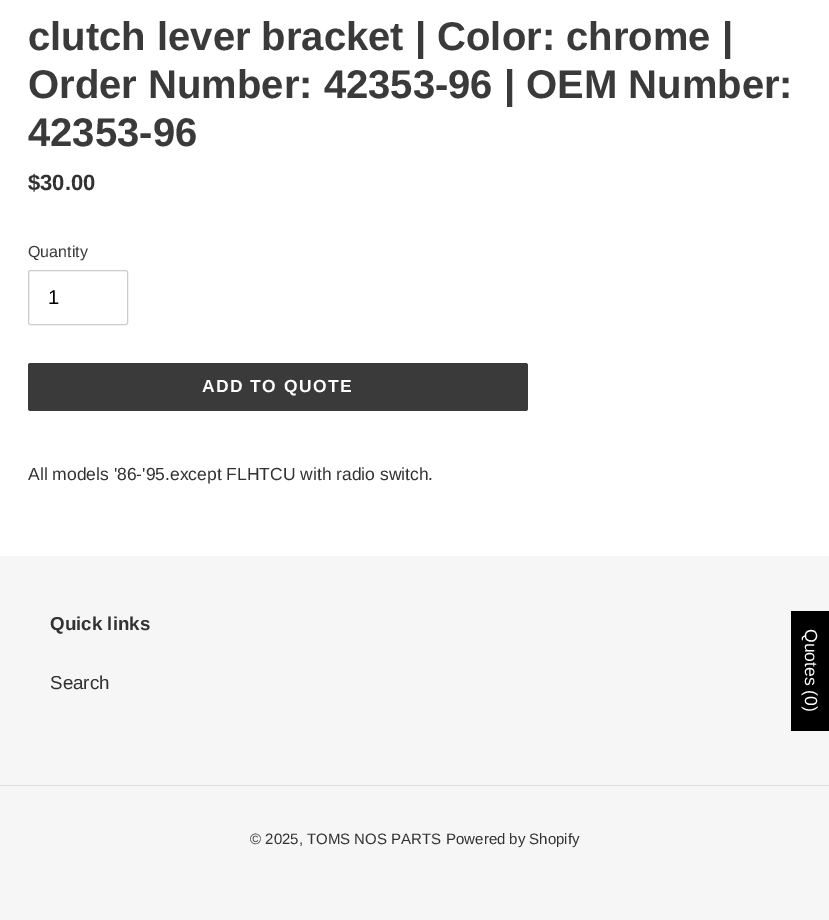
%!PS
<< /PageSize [829 920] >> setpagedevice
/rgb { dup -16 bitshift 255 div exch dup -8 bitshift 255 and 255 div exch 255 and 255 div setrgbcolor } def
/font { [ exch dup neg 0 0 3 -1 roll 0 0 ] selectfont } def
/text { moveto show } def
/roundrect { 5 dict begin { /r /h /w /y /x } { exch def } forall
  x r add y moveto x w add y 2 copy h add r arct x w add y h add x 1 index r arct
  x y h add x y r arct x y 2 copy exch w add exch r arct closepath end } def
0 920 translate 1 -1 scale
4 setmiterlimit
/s1 { /LiberationSans-Bold 40 font 16#3A3A3A rgb } def
/s2 { /LiberationSans-Bold 22 font 16#333232 rgb } def
/s3 { /LiberationSans-Regular 16 font 16#3A3A3A rgb } def
/s4 { /LiberationSans-Regular 20 font 16#000000 rgb } def
/s5 { /LiberationSans-Regular 17.5 font 16#333232 rgb } def
/s6 { /LiberationSans-Bold 18.75 font 16#333232 rgb } def
/s7 { /LiberationSans-Regular 18.75 font 16#333232 rgb } def
/s8 { /LiberationSans-Regular 15 font 16#333232 rgb } def
16#FFFFFF rgb
0 0 829 920 rectfill
s1
(clutch lever bracket | Color: chrome |) 28 50 text
(Order Number: 42353-96 | OEM Number:) 28 98 text
(42353-96) 28 146 text
s2
($30.00) 28 190 text
s3
(Quantity) 28 257 text
16#CCCCCC rgb
28.5 270.5 99 54 2 roundrect stroke
s4
(1) 48 304 text
16#3A3A3A rgb
28 363 500 48 2.5 roundrect fill
/LiberationSans-Bold 17.5 font
16#FFFFFF rgb
202 392 moveto 1.4 0 (ADD TO QUOTE) ashow
s5
(All models '86-'95.except FLHTCU with radio switch.) 28 480 text
16#F6F6F6 rgb
0 556 829 364 rectfill
s6
(Quick links) 50 630 text
s7
(Search) 50 689 text
16#DDDDDD rgb
0 785 829 1 rectfill
s8
(© 2025, TOMS NOS PARTS) 250 844 text
(Powered by Shopify) 446 844 text
16#000000 rgb
791 611 38 120 rectfill
/LiberationSans-Regular 17.5 font
16#FFFFFF rgb
gsave 805 629 translate 90 rotate 0 0 moveto (Quotes \(0\)) show grestore
showpage
